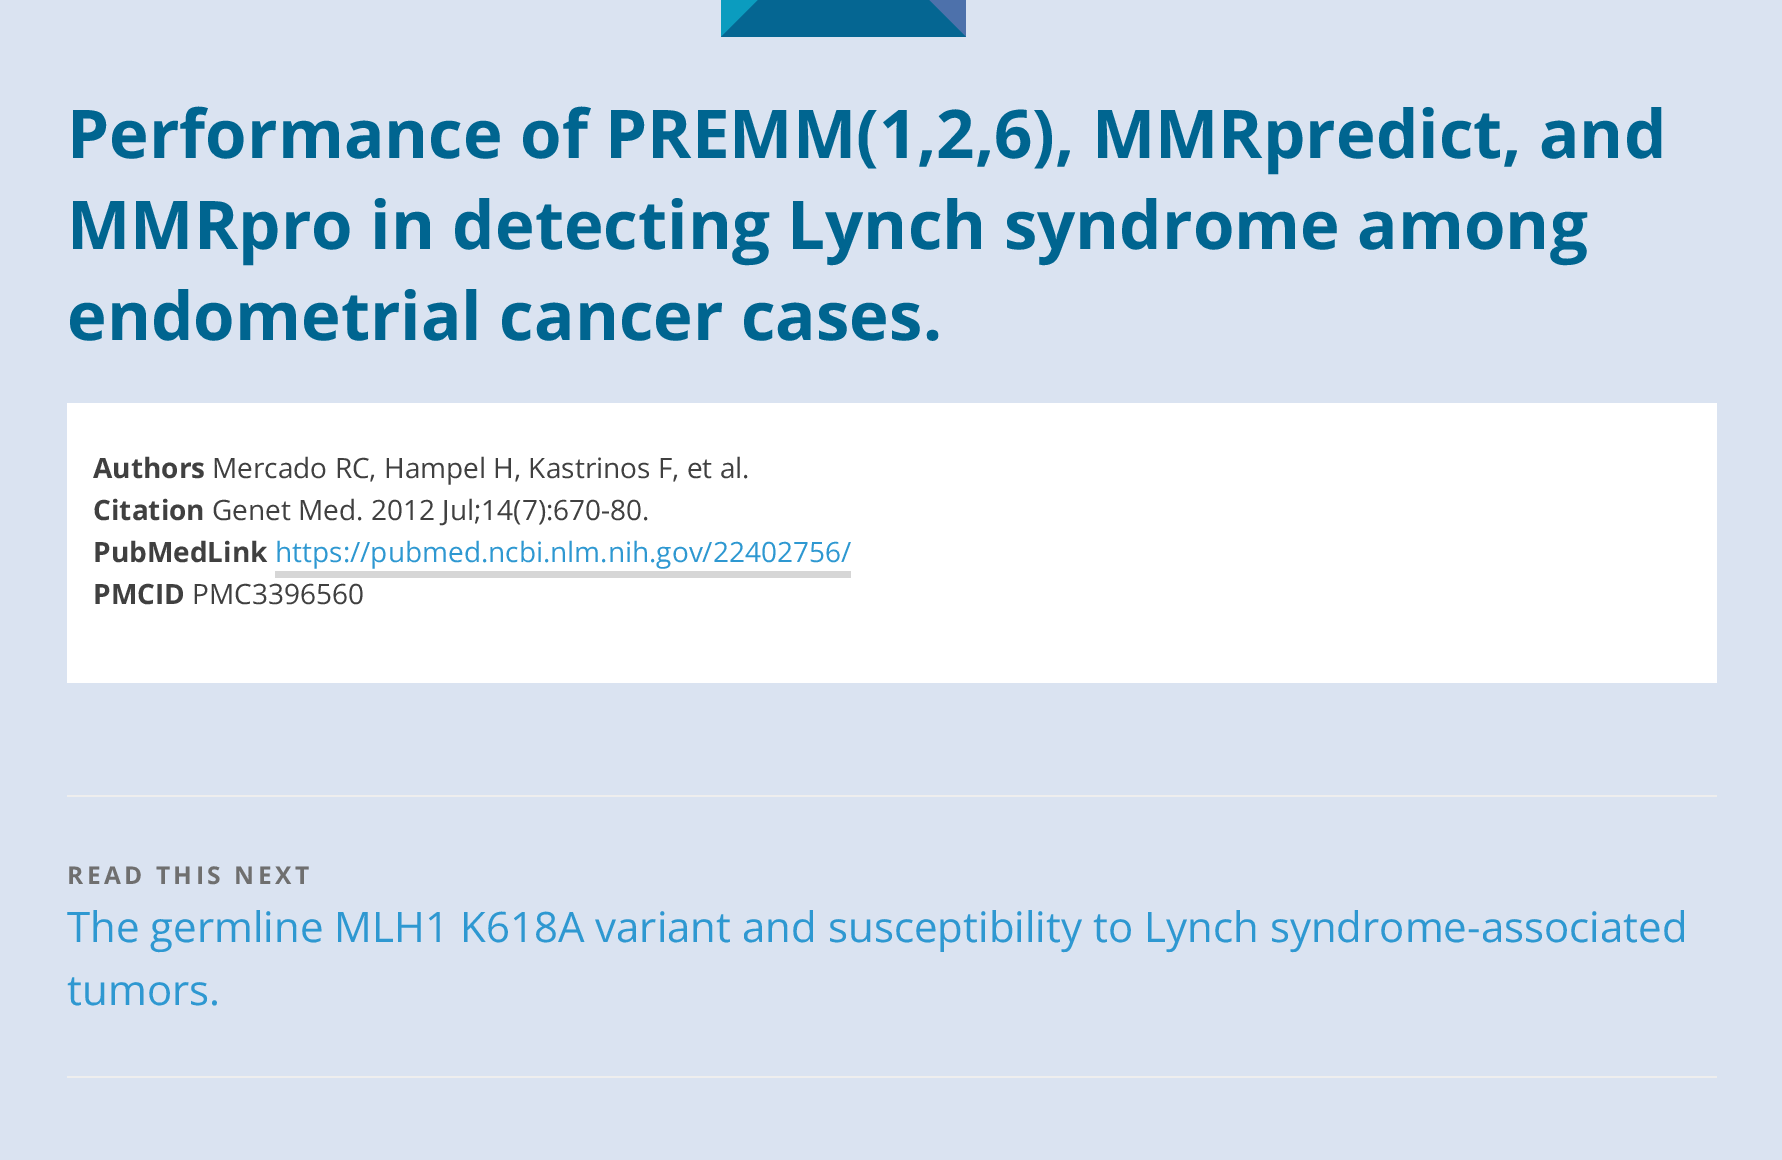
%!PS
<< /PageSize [1782 1160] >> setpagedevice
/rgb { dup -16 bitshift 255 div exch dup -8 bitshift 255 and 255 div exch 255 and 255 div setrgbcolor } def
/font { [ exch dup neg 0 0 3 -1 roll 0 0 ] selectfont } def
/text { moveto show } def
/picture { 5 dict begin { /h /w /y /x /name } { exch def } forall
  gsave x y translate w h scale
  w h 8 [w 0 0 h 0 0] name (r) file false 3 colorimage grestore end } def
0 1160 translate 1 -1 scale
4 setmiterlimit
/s1 { /OpenSans-Bold 67.2 font 16#006590 rgb } def
/s2 { /OpenSans-Bold 28 font 16#404040 rgb } def
/s3 { /OpenSans-Regular 28 font 16#404040 rgb } def
/s4 { /OpenSans-Regular 28 font 16#2E98D1 rgb } def
/s5 { /OpenSans-Regular 42 font 16#2E98D1 rgb } def
16#DAE3F1 rgb
0 0 1782 1160 rectfill
(pic1.raw) 721 0 245 37 picture
s1
(Performance of PREMM\(1,2,6\), MMRpredict, and) 67 158 text
(MMRpro in detecting Lynch syndrome among) 67 249 text
(endometrial cancer cases.) 67 340 text
16#FFFFFF rgb
67 403 1650 280 rectfill
s2
(Authors) 93 478 text
s3
(Mercado RC, Hampel H, Kastrinos F, et al.) 212 478 text
s2
(Citation) 93 520 text
s3
(Genet Med. 2012 Jul;14\(7\):670-80.) 212 520 text
s2
(PubMedLink) 93 562 text
s4
(https://pubmed.ncbi.nlm.nih.gov/22402756/) 275 562 text
16#D6D6D6 rgb
275 571 576 7 rectfill
s2
(PMCID) 93 604 text
s3
(PMC3396560) 192 604 text
16#EEEEEE rgb
67 795 1650 2 rectfill
67 1076 1650 2 rectfill
/OpenSans-Bold 24.5 font
16#6F6F6F rgb
67 884 moveto 3.5 0 (READ THIS NEXT) ashow
s5
(The germline MLH1 K618A variant and susceptibility to Lynch syndrome-associated) 67 942 text
(tumors.) 67 1005 text
showpage
